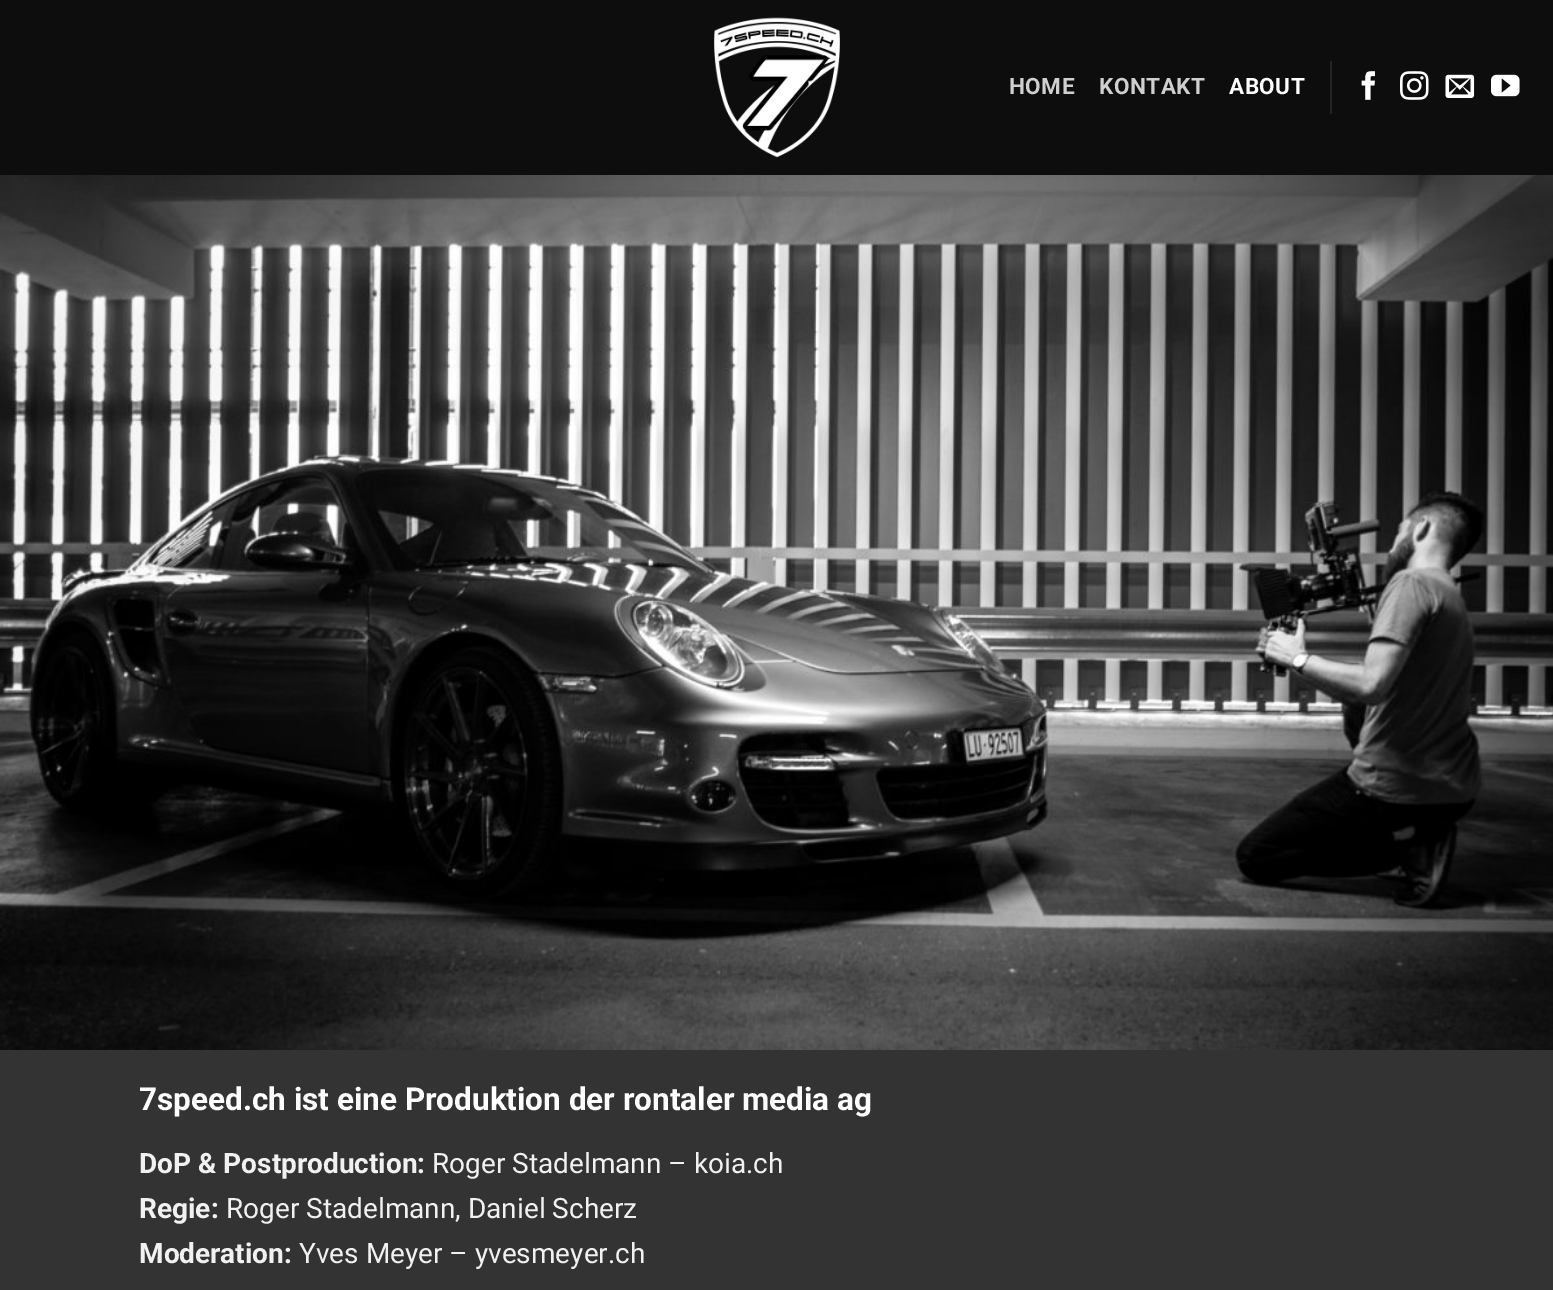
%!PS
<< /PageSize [1553 1290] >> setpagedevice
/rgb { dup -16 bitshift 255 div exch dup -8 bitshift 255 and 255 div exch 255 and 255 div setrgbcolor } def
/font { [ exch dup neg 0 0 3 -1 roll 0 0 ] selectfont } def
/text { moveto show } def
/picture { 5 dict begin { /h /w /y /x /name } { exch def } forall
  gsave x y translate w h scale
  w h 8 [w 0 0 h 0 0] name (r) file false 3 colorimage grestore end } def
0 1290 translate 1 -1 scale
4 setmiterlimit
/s1 { /Roboto-Bold 31.5 font 16#FFFFFF rgb } def
/s2 { /Roboto-Bold 28 font 16#F1F1F1 rgb } def
/s3 { /Roboto-Regular 28 font 16#F1F1F1 rgb } def
16#FFFFFF rgb
0 0 1553 1290 rectfill
16#0D0D0D rgb
0 0 1553 175 rectfill
(pic1.raw) 714 17 126 141 picture
/Roboto-Bold 22.5 font
16#CFCFCF rgb
1009 94 moveto 0.5 0 (HOME) ashow
1099 94 moveto 0.5 0 (KONTAKT) ashow
16#FFFFFF rgb
1229 94 moveto 0.5 0 (ABOUT) ashow
16#252525 rgb
1330 61 2 53 rectfill
(pic2.raw) 1361 71 14 29 picture
(pic3.raw) 1400 71 29 29 picture
(pic4.raw) 1445 74 30 24 picture
(pic5.raw) 1491 74 29 23 picture
(pic6.raw) 0 175 1553 875 picture
16#333333 rgb
0 1050 1553 240 rectfill
s1
(7speed.ch ist eine Produktion der rontaler media ag) 139 1110 text
s2
(DoP & Postproduction:) 139 1173 text
s3
(Roger Stadelmann – koia.ch) 432 1173 text
s2
(Regie:) 139 1218 text
s3
(Roger Stadelmann, Daniel Scherz) 226 1218 text
s2
(Moderation:) 139 1263 text
s3
(Yves Meyer – yvesmeyer.ch) 299 1263 text
showpage
